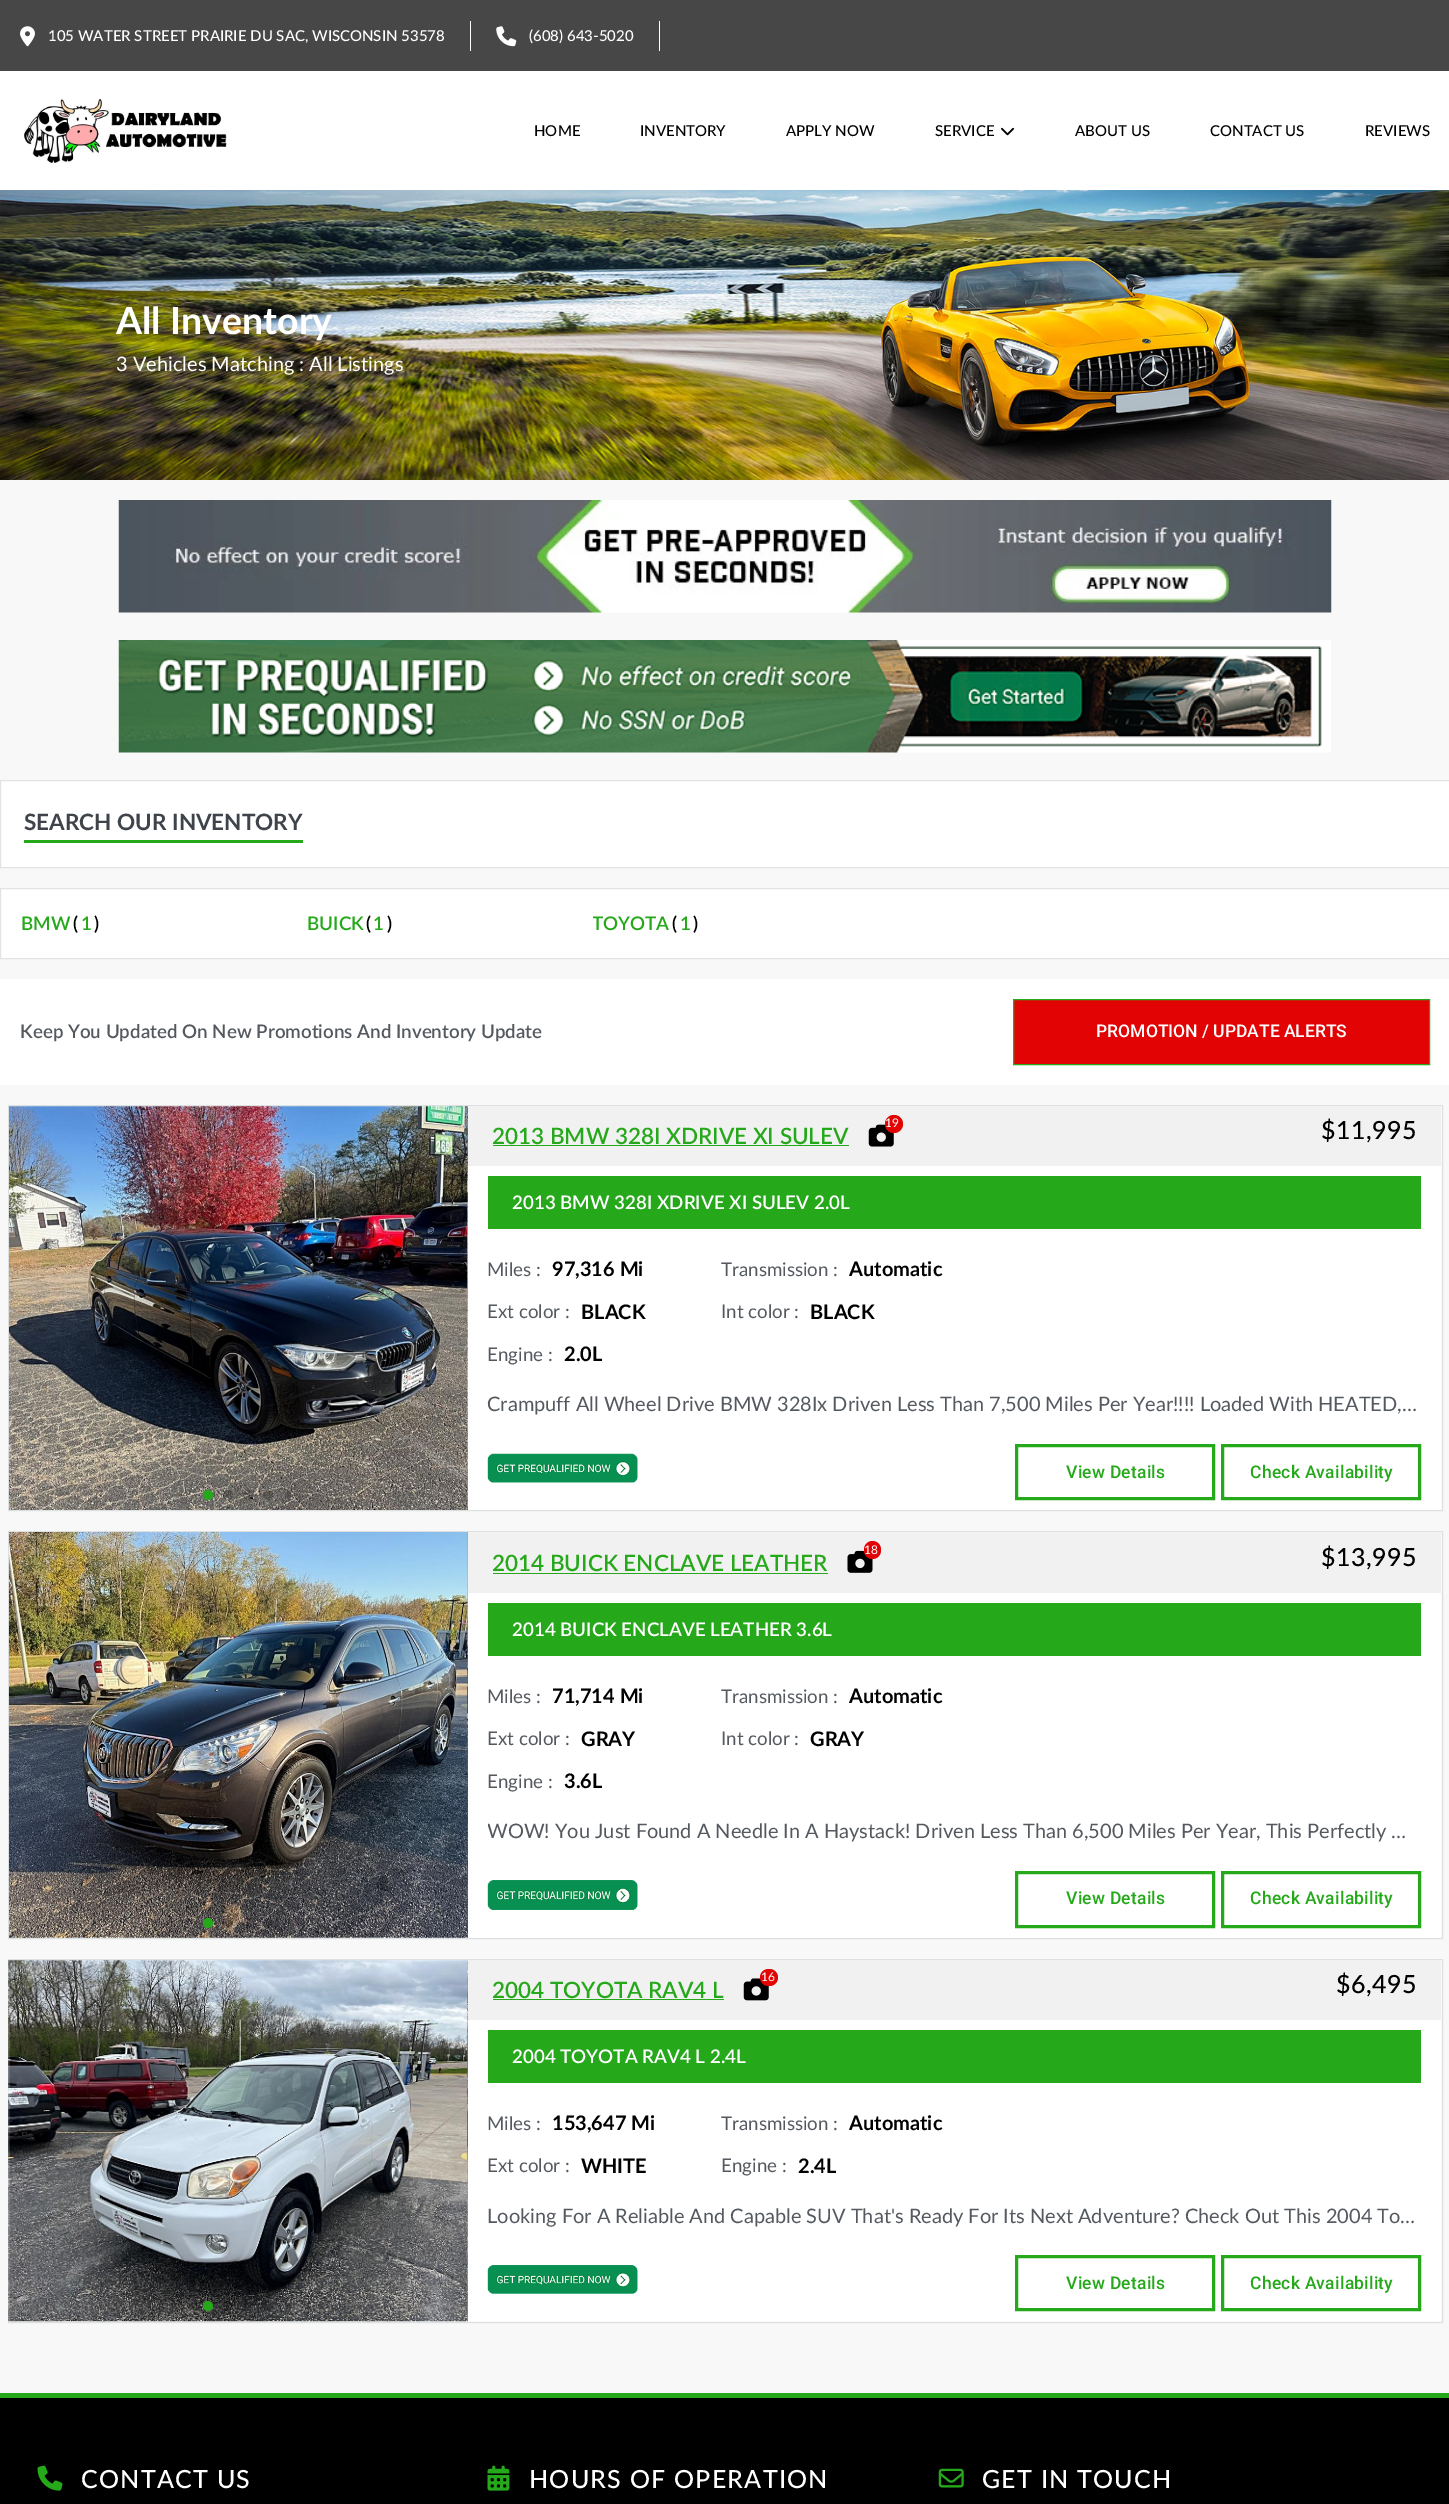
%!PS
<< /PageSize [1449 2504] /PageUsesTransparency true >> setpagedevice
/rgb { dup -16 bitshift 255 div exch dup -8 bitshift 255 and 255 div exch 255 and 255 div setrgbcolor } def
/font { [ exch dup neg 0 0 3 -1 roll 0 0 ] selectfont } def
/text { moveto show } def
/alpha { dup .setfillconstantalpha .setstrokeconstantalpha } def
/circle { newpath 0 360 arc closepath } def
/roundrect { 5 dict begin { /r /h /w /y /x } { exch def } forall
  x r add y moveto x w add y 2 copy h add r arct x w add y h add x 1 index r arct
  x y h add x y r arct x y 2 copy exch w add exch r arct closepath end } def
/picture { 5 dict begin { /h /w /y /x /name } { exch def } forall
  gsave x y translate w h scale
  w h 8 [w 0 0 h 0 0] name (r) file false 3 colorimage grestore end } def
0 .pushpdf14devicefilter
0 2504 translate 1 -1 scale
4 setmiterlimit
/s1 { /Lato-Medium 15 font 16#FFFFFF rgb } def
/s2 { /Lato-Medium 15 font 16#000000 rgb } def
/s3 { /Lato-Bold 37.5 font 16#FFFFFF rgb } def
/s4 { /Lato-Regular 20 font 16#FFFFFF rgb } def
/s5 { /Lato-Bold 22.5 font 16#3F444B rgb } def
/s6 { /Lato-SemiBold 18.75 font 16#26A81B rgb } def
/s7 { /Lato-SemiBold 18.75 font 16#000000 rgb } def
/s8 { /Lato-SemiBold 18.75 font 16#54595F rgb } def
/s9 { /Roboto-Medium 17.5 font 16#FFFFFF rgb } def
/s10 { /Lato-Regular 12 font 16#FFFFFF rgb } def
/s11 { /Lato-SemiBold 22.5 font 16#26A81B rgb } def
/s12 { /Lato-SemiBold 18.75 font 16#FFFFFF rgb } def
/s13 { /Lato-Regular 18.75 font 16#54595F rgb } def
/s14 { /Lato-Bold 20 font 16#000000 rgb } def
/s15 { /Lato-Regular 20 font 16#54595F rgb } def
16#FFFFFF rgb
0 0 1449 2504 rectfill
16#474747 rgb
0 0 1449 71 rectfill
16#FFFFFF rgb
470 21 1 30 rectfill
(pic1.raw) 20 26 15 21 picture
s1
(105 WATER STREET PRAIRIE DU SAC, WISCONSIN 53578) 48 41 text
659 21 1 30 rectfill
(pic2.raw) 496 26 21 21 picture
(\(608\) 643-5020) 529 41 text
(pic3.raw) 24 99 203 64 picture
s2
(HOME) 534 136 text
(INVENTORY) 640 136 text
(APPLY NOW) 786 136 text
(SERVICE) 935 136 text
(pic4.raw) 1001 127 13 9 picture
(ABOUT US) 1075 136 text
(CONTACT US) 1210 136 text
(REVIEWS) 1365 136 text
(pic5.raw) 0 190 1449 290 picture
s3
(All Inventory) 116 334 text
s4
(3 Vehicles Matching : All Listings) 116 371 text
16#F8F8F8 rgb
0 480 1449 1913 rectfill
(pic6.raw) 118 500 1214 113 picture
(pic7.raw) 118 640 1213 113 picture
16#FFFFFF rgb
0.5 780.5 moveto 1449.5 780.5 lineto 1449.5 867.5 lineto 0.5 867.5 lineto closepath gsave fill grestore
16#E3E3E3 rgb
stroke
16#26A81B rgb
24 840 279 3 rectfill
s5
(SEARCH OUR INVENTORY) 24 830 text
16#FFFFFF rgb
0.5 888.5 moveto 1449.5 888.5 lineto 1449.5 958.5 lineto 0.5 958.5 lineto closepath gsave fill grestore
16#E3E3E3 rgb
stroke
s6
(BMW) 21 930 text
s7
(\() 73 930 text
s6
(1) 81 930 text
s7
(\)) 94 930 text
s6
(BUICK) 307 930 text
s7
(\() 366 930 text
s6
(1) 373 930 text
s7
(\)) 387 930 text
gsave
593 909 77 29 rectclip
s6
(TOYOTA) 592 930 text
grestore
(\() 672 930 text
s6
(1) 680 930 text
s7
(\)) 693 930 text
16#FFFFFF rgb
0 979 1449 106 rectfill
s8
(Keep You Updated On New Promotions And Inventory Update) 20 1038 text
16#E20404 rgb
1013.5 999.5 moveto 1429.5 999.5 lineto 1429.5 1064.5 lineto 1013.5 1064.5 lineto closepath gsave fill grestore
16#26A81B rgb
stroke
s9
(PROMOTION / UPDATE ALERTS) 1096 1037 text
16#DCE0E0 rgb
8.5 1105.5 1434 405 rectstroke
(pic8.raw) 9 1106 459 404 picture
(pic9.raw) 467 1106 1 404 picture
16#26A81B rgb
208 1495 5 circle fill
0.2 alpha
16#000000 rgb
228 1495 5 circle fill
248 1495 5 circle fill
268 1495 5 circle fill
285 1491 6 8 3 roundrect fill
1 alpha
16#F1F1F1 rgb
468 1106 973 60 rectfill
(pic10.raw) 868 1124 26 23 picture
16#E20404 rgb
894 1124 9 circle fill
s10
(19) 885 1127 text
s11
(2013 BMW 328I XDRIVE XI SULEV) 492 1144 text
493 1145 356 1 rectfill
/Lato-Medium 25 font
16#000000 rgb
1321 1139 moveto 0.5 0 ($11,995) ashow
16#FFFFFF rgb
468 1166 973 344 rectfill
16#26A81B rgb
488 1176 933 53 rectfill
s12
(2013 BMW 328I XDRIVE XI SULEV 2.0L) 512 1209 text
s13
(Miles :) 487 1276 text
s14
(97,316 Mi) 552 1276 text
s13
(Transmission :) 721 1276 text
s14
(Automatic) 849 1276 text
s13
(Ext color :) 487 1318 text
s14
(BLACK) 581 1319 text
s13
(Int color :) 721 1318 text
s14
(BLACK) 810 1319 text
s13
(Engine :) 487 1361 text
s14
(2.0L) 564 1361 text
s15
(Crampuff All Wheel Drive BMW 328Ix Driven Less Than 7,500 Miles Per Year!!!! Loaded With HEATED,…) 487 1411 text
(pic11.raw) 487 1453 151 30 picture
16#26A81B rgb
3 setlinewidth
1016.5 1445.5 197 53 rectstroke
/Roboto-Medium 17.5 font
1066 1478 moveto 0.25 0 (View Details) ashow
1222.5 1445.5 197 53 rectstroke
1250 1478 moveto 0.25 0 (Check Availability) ashow
16#DCE0E0 rgb
1 setlinewidth
8.5 1531.5 1434 407 rectstroke
(pic12.raw) 9 1532 459 406 picture
(pic13.raw) 467 1532 1 406 picture
16#26A81B rgb
208 1923 5 circle fill
0.2 alpha
16#000000 rgb
228 1923 5 circle fill
248 1923 5 circle fill
268 1923 5 circle fill
288 1922 3 circle fill
1 alpha
16#F1F1F1 rgb
468 1533 973 60 rectfill
(pic14.raw) 847 1550 26 23 picture
16#E20404 rgb
864 1541 17 18 8.5 roundrect fill
s10
(18) 864 1554 text
s11
(2014 BUICK ENCLAVE LEATHER) 492 1571 text
493 1573 335 1 rectfill
/Lato-Medium 25 font
16#000000 rgb
1321 1566 moveto 0.5 0 ($13,995) ashow
16#FFFFFF rgb
468 1593 973 345 rectfill
16#26A81B rgb
488 1603 933 53 rectfill
s12
(2014 BUICK ENCLAVE LEATHER 3.6L) 512 1636 text
s13
(Miles :) 487 1703 text
s14
(71,714 Mi) 552 1703 text
s13
(Transmission :) 721 1703 text
s14
(Automatic) 849 1703 text
s13
(Ext color :) 487 1745 text
s14
(GRAY) 581 1746 text
s13
(Int color :) 721 1745 text
s14
(GRAY) 810 1746 text
s13
(Engine :) 487 1788 text
s14
(3.6L) 564 1788 text
gsave
488 1821 933 25 rectclip
s15
(WOW! You Just Found A Needle In A Haystack! Driven Less Than 6,500 Miles Per Year, This Perfectly …) 487 1838 text
grestore
(pic15.raw) 487 1880 151 30 picture
16#26A81B rgb
3 setlinewidth
1016.5 1872.5 197 54 rectstroke
/Roboto-Medium 17.5 font
1066 1904 moveto 0.25 0 (View Details) ashow
1222.5 1872.5 197 54 rectstroke
1250 1904 moveto 0.25 0 (Check Availability) ashow
16#DCE0E0 rgb
1 setlinewidth
8.5 1959.5 1434 363 rectstroke
(pic16.raw) 8 1960 460 362 picture
(pic17.raw) 467 1960 1 362 picture
16#26A81B rgb
208 2306 5 circle fill
0.2 alpha
16#000000 rgb
228 2306 5 circle fill
248 2306 5 circle fill
268 2306 5 circle fill
285 2303 6 7 3 roundrect fill
1 alpha
16#F1F1F1 rgb
468 1960 973 60 rectfill
(pic18.raw) 743 1978 26 23 picture
16#E20404 rgb
760 1969 18 17 8.5 roundrect fill
s10
(16) 761 1981 text
s11
(2004 TOYOTA RAV4 L) 492 1998 text
493 1999 231 1 rectfill
/Lato-Medium 25 font
16#000000 rgb
1336 1993 moveto 0.5 0 ($6,495) ashow
16#FFFFFF rgb
468 2020 973 301 rectfill
16#26A81B rgb
488 2030 933 53 rectfill
s12
(2004 TOYOTA RAV4 L 2.4L) 512 2063 text
s13
(Miles :) 487 2130 text
s14
(153,647 Mi) 552 2130 text
s13
(Transmission :) 721 2130 text
s14
(Automatic) 849 2130 text
s13
(Ext color :) 487 2172 text
s14
(WHITE) 581 2173 text
s13
(Engine :) 721 2172 text
s14
(2.4L) 798 2173 text
s15
(Looking For A Reliable And Capable SUV That's Ready For Its Next Adventure? Check Out This 2004 To…) 487 2223 text
(pic19.raw) 487 2265 151 29 picture
16#26A81B rgb
3 setlinewidth
1016.5 2256.5 197 53 rectstroke
/Roboto-Medium 17.5 font
1066 2289 moveto 0.25 0 (View Details) ashow
1222.5 2256.5 197 53 rectstroke
1250 2289 moveto 0.25 0 (Check Availability) ashow
16#000000 rgb
0 2398 1449 106 rectfill
16#26A81B rgb
0 2393 1449 5 rectfill
(pic20.raw) 37 2465 26 26 picture
/Lato-Medium 25 font
16#FFFFFF rgb
81 2488 moveto 1.25 0 (CONTACT US) ashow
(pic21.raw) 487 2465 23 26 picture
529 2488 moveto 1.25 0 (HOURS OF OPERATION) ashow
(pic22.raw) 938 2468 26 20 picture
982 2488 moveto 1.25 0 (GET IN TOUCH) ashow
.poppdf14devicefilter showpage
